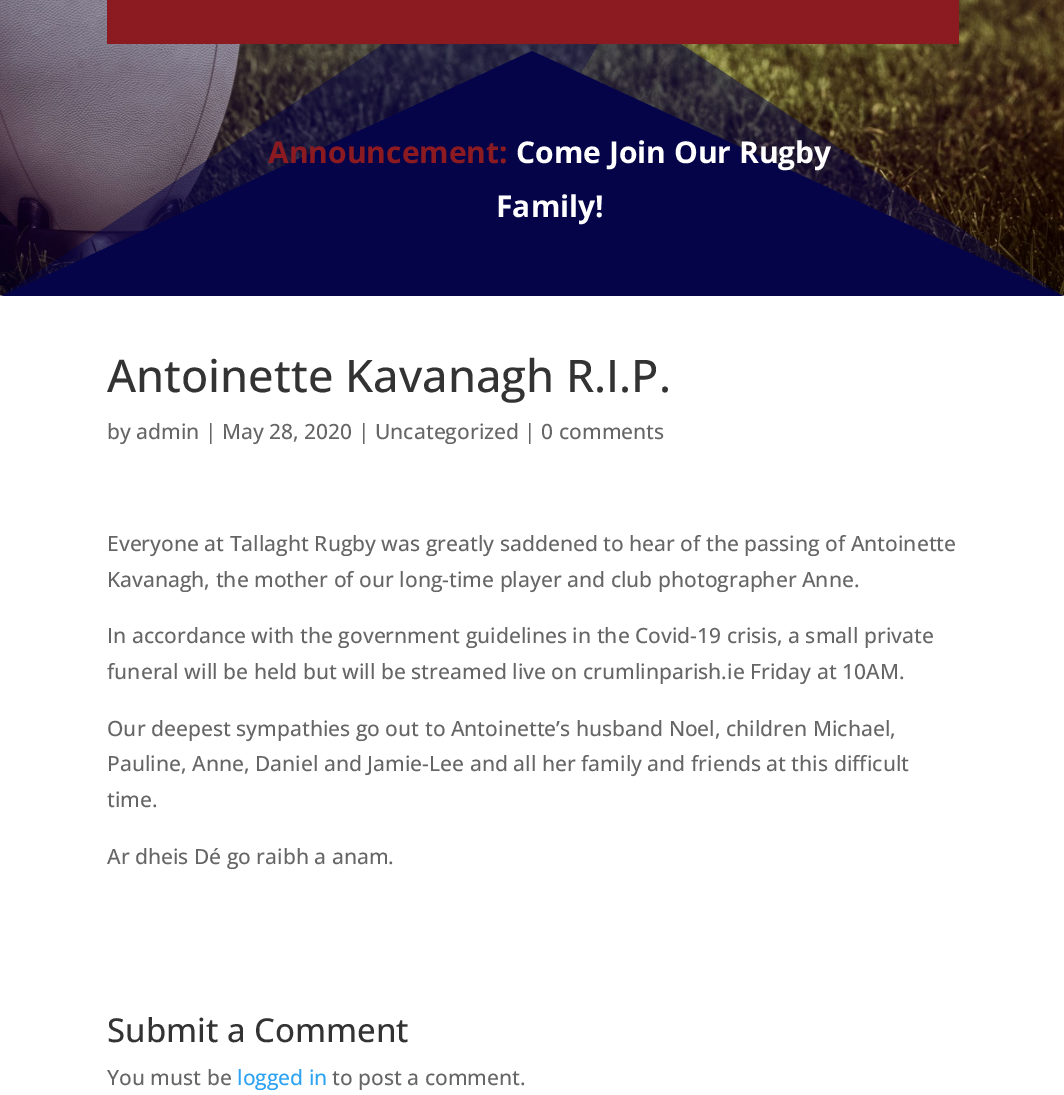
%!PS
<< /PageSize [1064 1095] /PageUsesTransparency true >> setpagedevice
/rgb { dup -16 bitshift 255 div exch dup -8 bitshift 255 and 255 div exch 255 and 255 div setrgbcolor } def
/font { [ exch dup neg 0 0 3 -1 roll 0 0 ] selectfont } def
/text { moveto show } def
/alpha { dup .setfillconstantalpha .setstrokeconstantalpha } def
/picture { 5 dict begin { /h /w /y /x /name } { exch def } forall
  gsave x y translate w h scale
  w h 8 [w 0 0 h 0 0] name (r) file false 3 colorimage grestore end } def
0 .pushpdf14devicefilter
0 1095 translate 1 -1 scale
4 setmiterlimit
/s1 { /OpenSans-Bold 30 font 16#8C1A21 rgb } def
/s2 { /OpenSans-Bold 30 font 16#FFFFFF rgb } def
/s3 { /OpenSans-Medium 45 font 16#333333 rgb } def
/s4 { /OpenSans-Medium 21 font 16#666666 rgb } def
/s5 { /OpenSans-Medium 33 font 16#333333 rgb } def
/s6 { /OpenSans-Medium 21 font 16#2EA3F2 rgb } def
16#FFFFFF rgb
0 0 1064 1095 rectfill
(pic1.raw) 0 0 1064 296 picture
gsave
0 0 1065 296 rectclip
0.5 alpha
16#050448 rgb
532 -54 moveto 0 297 lineto 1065 297 lineto closepath fill
1 alpha
532 51 moveto 0 297 lineto 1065 297 lineto closepath fill
grestore
16#8C1A21 rgb
107 0 852 44 rectfill
s1
(Announcement:) 268 163 text
s2
(Come Join Our Rugby) 516 163 text
(Family!) 496 217 text
s3
(Antoinette Kavanagh R.I.P.) 107 392 text
s4
(by admin | May 28, 2020 | Uncategorized | 0 comments) 107 439 text
(Everyone at Tallaght Rugby was greatly saddened to hear of the passing of Antoinette) 107 551 text
(Kavanagh, the mother of our long-time player and club photographer Anne.) 107 587 text
(In accordance with the government guidelines in the Covid-19 crisis, a small private) 107 643 text
(funeral will be held but will be streamed live on crumlinparish.ie Friday at 10AM.) 107 679 text
(Our deepest sympathies go out to Antoinette’s husband Noel, children Michael,) 107 736 text
(Pauline, Anne, Daniel and Jamie-Lee and all her family and friends at this difficult) 107 771 text
(time.) 107 807 text
(Ar dheis Dé go raibh a anam.) 107 864 text
s5
(Submit a Comment) 107 1042 text
s4
(You must be) 107 1085 text
s6
(logged in) 237 1085 text
s4
(to post a comment.) 332 1085 text
.poppdf14devicefilter showpage
